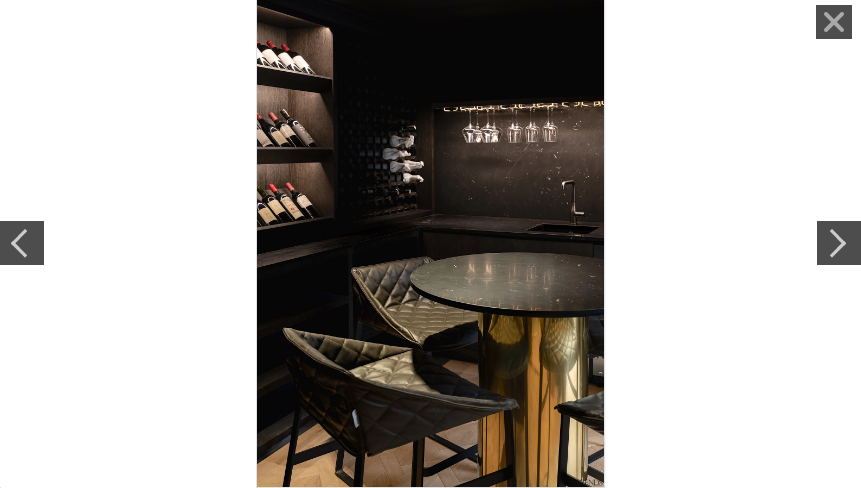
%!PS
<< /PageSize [861 488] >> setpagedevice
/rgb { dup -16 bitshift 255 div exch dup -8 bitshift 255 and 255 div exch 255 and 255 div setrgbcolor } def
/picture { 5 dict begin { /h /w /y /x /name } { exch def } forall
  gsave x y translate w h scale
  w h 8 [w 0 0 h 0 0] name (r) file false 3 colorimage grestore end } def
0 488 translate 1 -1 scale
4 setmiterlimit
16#FFFFFF rgb
0 0 861 488 rectfill
16#DEE2E6 rgb
256.5 -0.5 348 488 rectstroke
(pic1.raw) 257 0 347 487 picture
16#4D4D4D rgb
816 5 36 34 rectfill
(pic2.raw) 824 12 20 20 picture
0 221 44 44 rectfill
16#CCCCCC rgb
11 243.5 moveto 25 229 lineto 27 231 lineto 13 245.5 lineto closepath fill
11 243.5 moveto 13 241 lineto 27 255.5 lineto 25 257.5 lineto closepath fill
16#4D4D4D rgb
817 221 44 44 rectfill
16#CCCCCC rgb
832 229 moveto 846 243.5 lineto 844 245.5 lineto 830 231 lineto closepath fill
844 241 moveto 846 243.5 lineto 832 257.5 lineto 830 255.5 lineto closepath fill
16#DEE2E6 rgb
0 487 1 1 rectfill
showpage
